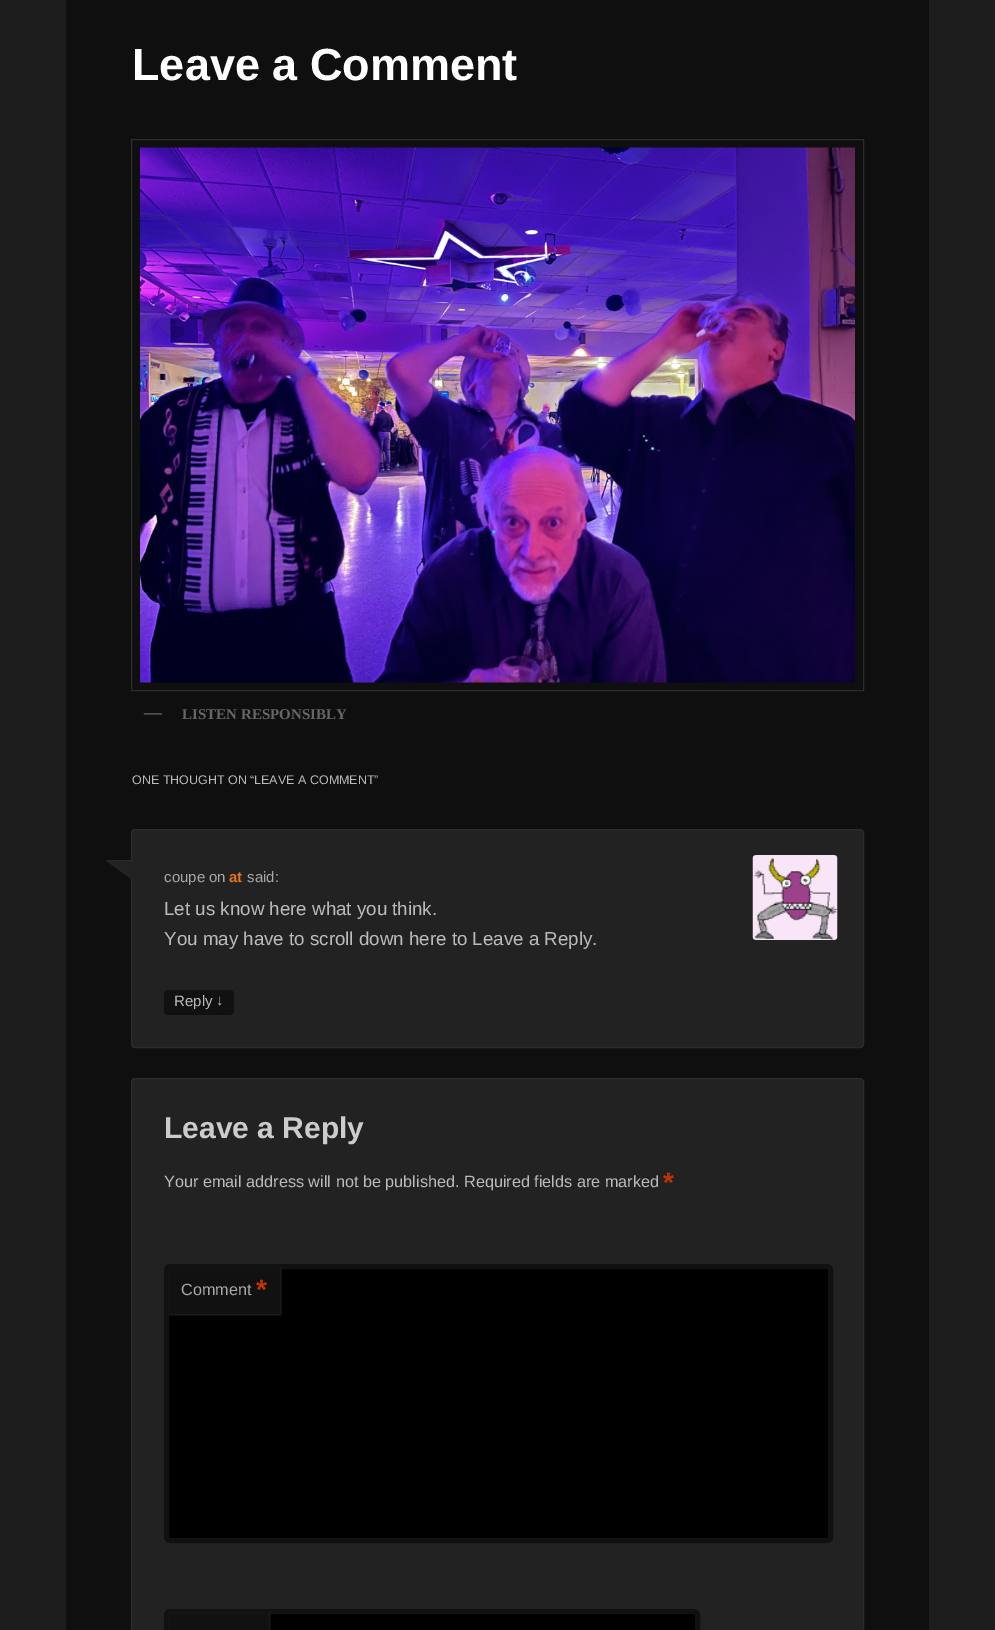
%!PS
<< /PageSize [995 1630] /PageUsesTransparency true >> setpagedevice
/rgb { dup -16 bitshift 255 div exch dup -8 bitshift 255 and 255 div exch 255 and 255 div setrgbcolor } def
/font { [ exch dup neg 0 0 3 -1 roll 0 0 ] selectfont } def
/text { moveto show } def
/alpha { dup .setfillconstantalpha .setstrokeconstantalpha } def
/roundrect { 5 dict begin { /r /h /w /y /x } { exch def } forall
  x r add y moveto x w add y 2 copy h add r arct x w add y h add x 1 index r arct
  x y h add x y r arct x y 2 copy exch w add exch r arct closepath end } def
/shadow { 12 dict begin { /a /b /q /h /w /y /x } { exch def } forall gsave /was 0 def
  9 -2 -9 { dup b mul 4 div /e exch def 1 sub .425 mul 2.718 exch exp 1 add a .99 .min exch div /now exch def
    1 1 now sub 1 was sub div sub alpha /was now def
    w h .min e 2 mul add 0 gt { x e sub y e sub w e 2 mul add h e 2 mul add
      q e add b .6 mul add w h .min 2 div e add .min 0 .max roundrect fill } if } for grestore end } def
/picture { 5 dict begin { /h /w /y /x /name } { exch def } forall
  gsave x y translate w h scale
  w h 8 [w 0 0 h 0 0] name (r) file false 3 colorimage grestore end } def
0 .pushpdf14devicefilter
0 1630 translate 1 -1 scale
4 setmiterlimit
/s1 { /LiberationSans-Bold 45 font 16#FFFFFF rgb } def
/s2 { /LiberationSerif-Bold 18 font 16#666666 rgb } def
/s3 { /LiberationSerif-Bold 15 font 16#666666 rgb } def
/s4 { /LiberationSans-Regular 12.5 font 16#BBBBBB rgb } def
/s5 { /LiberationSans-Regular 15 font 16#A8A8A8 rgb } def
/s6 { /LiberationSans-Bold 15 font 16#E4741F rgb } def
/s7 { /LiberationSans-Regular 18.75 font 16#BBBBBB rgb } def
/s8 { /LiberationSans-Regular 15 font 16#BBBBBB rgb } def
/s9 { /LiberationSans-Bold 30 font 16#CCCCCC rgb } def
/s10 { /LiberationSans-Regular 16.25 font 16#BBBBBB rgb } def
/s11 { /LiberationSans-Bold 28 font 16#BD3500 rgb } def
/s12 { /LiberationSans-Regular 16.25 font 16#A8A8A8 rgb } def
16#1D1D1D rgb
0 0 995 1630 rectfill
16#0F0F0F rgb
66 0 863 1630 rectfill
s1
(Leave a Comment) 132 80 text
16#2C2C2C rgb
131.5 139.5 732 551 rectstroke
(pic1.raw) 140 147 715 536 picture
s2
(—) 144 718 text
s3
(LISTEN RESPONSIBLY) 182 719 text
s4
(ONE THOUGHT ON “LEAVE A COMMENT”) 132 784 text
16#222222 rgb
131.5 829.5 732 218 3.5 roundrect gsave fill grestore
16#2C2C2C rgb
stroke
(pic2.raw) 106 860 27 19 picture
s5
(coupe on) 164 882 text
s6
(at) 229 882 text
s5
(said:) 247 882 text
(pic3.raw) 752 855 86 85 picture
s7
(Let us know here what you think.) 164 915 text
(You may have to scroll down here to Leave a Reply.) 164 945 text
16#111111 rgb
164 990 70 25 4 roundrect fill
s8
(Reply) 174 1006 text
(↓) 216 1005 text
16#222222 rgb
131.5 1078.5 732 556 3.5 roundrect gsave fill grestore
16#2C2C2C rgb
stroke
s9
(Leave a Reply) 164 1138 text
s10
(Your email address will not be published. Required fields are marked) 164 1187 text
s11
(*) 663 1192 text
16#000000 rgb
166.5 1266.5 664 274 3.5 roundrect gsave fill grestore
16#111111 rgb
5 setlinewidth
stroke
16#333333 rgb
170 1269 111 46 0 1 0.8 shadow
16#111111 rgb
169 1268 111 46 rectfill
s12
(Comment) 181 1295 text
s11
(*) 256 1299 text
16#000000 rgb
166.5 1611.5 531 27 3.5 roundrect gsave fill grestore
16#111111 rgb
stroke
16#333333 rgb
170 1614 100 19 0 1 0.8 shadow
16#111111 rgb
169 1613 100 17 rectfill
.poppdf14devicefilter showpage
